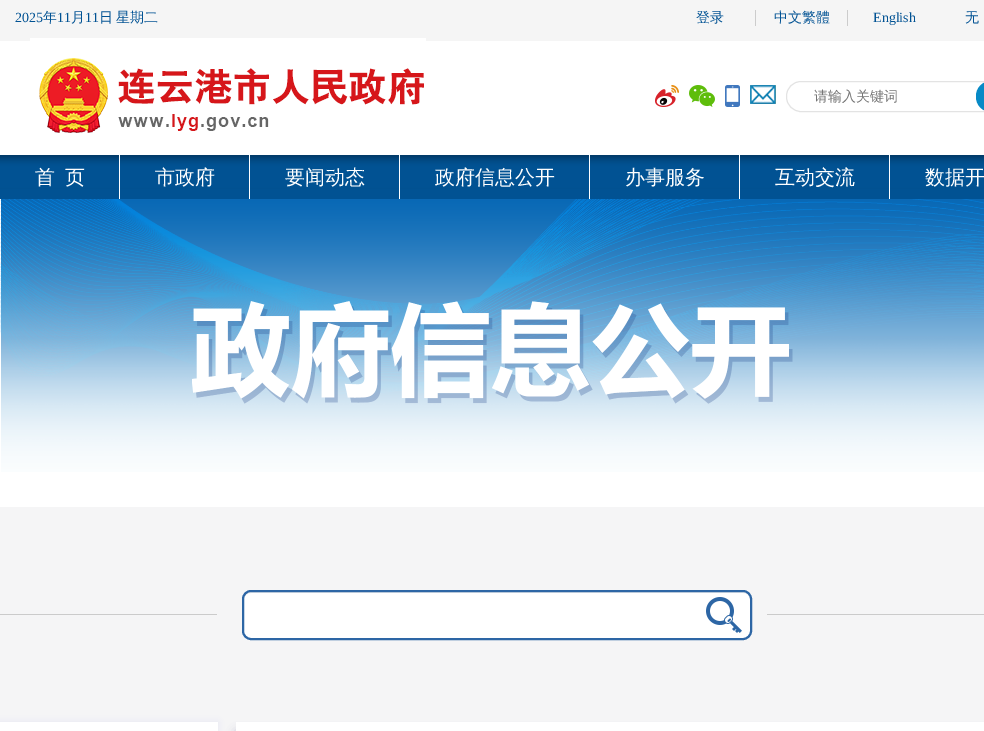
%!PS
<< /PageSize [984 731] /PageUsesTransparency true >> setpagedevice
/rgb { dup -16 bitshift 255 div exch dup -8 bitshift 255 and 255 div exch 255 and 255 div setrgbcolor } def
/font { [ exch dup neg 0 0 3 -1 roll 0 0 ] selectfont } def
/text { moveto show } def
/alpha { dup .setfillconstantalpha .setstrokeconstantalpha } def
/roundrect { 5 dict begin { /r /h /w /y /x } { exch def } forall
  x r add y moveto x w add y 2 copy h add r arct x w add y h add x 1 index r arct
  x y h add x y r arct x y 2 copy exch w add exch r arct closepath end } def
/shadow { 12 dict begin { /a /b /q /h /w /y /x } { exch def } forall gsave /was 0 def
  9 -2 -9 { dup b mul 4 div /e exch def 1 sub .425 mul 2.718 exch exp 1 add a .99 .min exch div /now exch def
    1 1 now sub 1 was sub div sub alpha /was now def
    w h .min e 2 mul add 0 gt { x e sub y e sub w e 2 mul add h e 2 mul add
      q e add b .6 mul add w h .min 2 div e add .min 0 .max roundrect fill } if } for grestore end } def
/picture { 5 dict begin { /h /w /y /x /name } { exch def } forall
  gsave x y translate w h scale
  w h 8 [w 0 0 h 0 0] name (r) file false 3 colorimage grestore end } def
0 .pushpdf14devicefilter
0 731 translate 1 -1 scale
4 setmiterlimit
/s1 { /LiberationSerif-Regular 14 font 16#015293 rgb } def
/s2 { /WenQuanYiZenHei-Medium 14 font 16#015293 rgb } def
/s3 { /WenQuanYiZenHei-Medium 14 font 16#757575 rgb } def
/s4 { /WenQuanYiZenHei-Medium 20 font 16#FFFFFF rgb } def
16#FFFFFF rgb
0 0 984 731 rectfill
16#F5F5F5 rgb
0 0 984 41 rectfill
s1
(2025) 15 22 text
s2
(年) 43 22 text
s1
(11) 57 22 text
s2
(月) 71 22 text
s1
(11) 85 22 text
/WenQuanYiZenHei-Medium 14 font
99 22 moveto -1 0 32 (日 星期二) widthshow
16#CCCCCC rgb
755 10 1 16 rectfill
s2
(登录) 696 22 text
16#CCCCCC rgb
847 10 1 16 rectfill
s2
(中文繁體) 774 22 text
s1
(English) 873 22 text
s2
(无) 965 22 text
(pic1.raw) 30 38 396 95 picture
(pic2.raw) 655 85 24 22 picture
(pic3.raw) 689 85 26 22 picture
(pic4.raw) 725 85 15 22 picture
(pic5.raw) 750 85 26 19 picture
16#E3E3E3 rgb
786.5 81.5 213 30 14.5 roundrect stroke
s3
(请输入关键词) 814 101 text
16#078AC6 rgb
976 81 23 31 15 roundrect fill
(pic6.raw) 0 155 984 44 picture
16#FFFFFF rgb
119 155 1 44 rectfill
s4
(首) 35 184 text
(页) 65 184 text
249 155 1 44 rectfill
(市政府) 155 184 text
399 155 1 44 rectfill
(要闻动态) 285 184 text
589 155 1 44 rectfill
(政府信息公开) 435 184 text
739 155 1 44 rectfill
(办事服务) 625 184 text
889 155 1 44 rectfill
(互动交流) 775 184 text
(数据开) 925 184 text
(pic7.raw) 0 199 984 273 picture
(pic8.raw) 192 301 601 103 picture
gsave 0 507 moveto 984 507 lineto 984 731 lineto 0 731 lineto closepath clip newpath
<< /ShadingType 2 /ColorSpace /DeviceRGB /Coords [492 507 492 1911] /Extend [true true] /Function << /FunctionType 2 /Domain [0 1] /C0 [0.961 0.961 0.965] /C1 [0.992 0.992 0.992] /N 1 >> >> shfill grestore
242 590 510 50 9 roundrect fill
16#ECECEC rgb
251 593 moveto 743 593 lineto 747 593 750 596 750 600 curveto 750 599 lineto 750 595 747 592 743 592 curveto 251 592 lineto 247 592 244 595 244 599 curveto 244 600 lineto 244 596 247 593 251 593 curveto closepath fill
16#2D66A5 rgb
2 setlinewidth
243 591 508 48 8 roundrect stroke
16#CBCBCB rgb
0 614 217 1 rectfill
(pic9.raw) 706 597 36 36 picture
767 614 217 1 rectfill
16#204389 rgb
-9 722 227 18 0 3 0.07 shadow
16#FFFFFF rgb
0 722 218 9 rectfill
16#BABACD rgb
236 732 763 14 0 5 1 shadow
16#FFFFFF rgb
236 722 748 9 rectfill
.poppdf14devicefilter showpage
